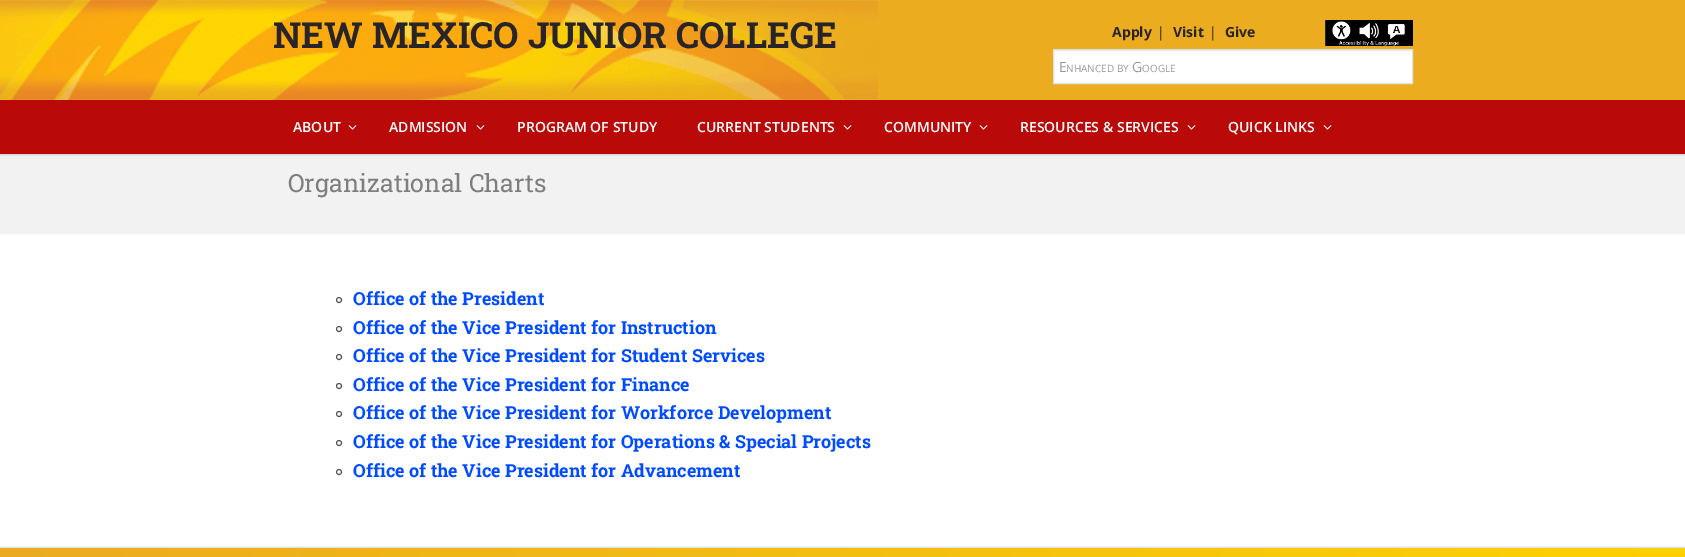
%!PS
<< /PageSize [1685 557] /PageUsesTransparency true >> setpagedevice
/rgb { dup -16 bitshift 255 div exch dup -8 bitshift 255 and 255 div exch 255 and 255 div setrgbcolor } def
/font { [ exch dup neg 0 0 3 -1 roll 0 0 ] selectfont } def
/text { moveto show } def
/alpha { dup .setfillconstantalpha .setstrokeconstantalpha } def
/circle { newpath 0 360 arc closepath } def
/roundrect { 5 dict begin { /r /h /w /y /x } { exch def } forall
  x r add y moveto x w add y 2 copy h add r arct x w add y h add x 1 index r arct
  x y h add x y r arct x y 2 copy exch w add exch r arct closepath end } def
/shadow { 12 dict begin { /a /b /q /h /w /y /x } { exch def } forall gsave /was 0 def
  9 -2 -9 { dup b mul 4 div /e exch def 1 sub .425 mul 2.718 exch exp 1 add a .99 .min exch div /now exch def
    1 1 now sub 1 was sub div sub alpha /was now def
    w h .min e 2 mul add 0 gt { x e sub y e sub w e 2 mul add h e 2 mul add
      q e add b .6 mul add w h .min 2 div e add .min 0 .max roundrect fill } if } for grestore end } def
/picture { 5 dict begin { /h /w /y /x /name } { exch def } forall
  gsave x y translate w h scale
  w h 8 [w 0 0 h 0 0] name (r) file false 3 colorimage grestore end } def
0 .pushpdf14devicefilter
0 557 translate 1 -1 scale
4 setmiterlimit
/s1 { /RobotoSlab-Bold 36 font 16#282428 rgb } def
/s2 { /OpenSans-Bold 14 font 16#282428 rgb } def
/s3 { /OpenSans-Regular 14 font 16#282428 rgb } def
/s4 { /OpenSans-Regular 14 font 16#999999 rgb } def
/s5 { /OpenSans-Regular 10 font 16#999999 rgb } def
/s6 { /OpenSans-SemiBold 14 font 16#FFFFFF rgb } def
/s7 { /RobotoSlab-Regular 25 font 16#7E7E7E rgb } def
/s8 { /RobotoSlab-Bold 18 font 16#004BFF rgb } def
16#F2F2F2 rgb
0 0 1685 557 rectfill
16#ECAC20 rgb
878 0 807 100 rectfill
(pic1.raw) 0 0 878 100 picture
s1
(NEW MEXICO JUNIOR COLLEGE) 273 48 text
s2
(Apply) 1112 37 text
s3
(|) 1157 37 text
s2
(Visit) 1173 37 text
s3
(|) 1209 37 text
s2
(Give) 1225 37 text
(pic2.raw) 1325 20 88 26 picture
16#FFFFFF rgb
1054 51 358 32 rectfill
16#ECECEC rgb
1054 50 358 1 rectfill
16#DCDFE3 rgb
1053.5 49.5 359 34 rectstroke
s4
(E) 1059 72 text
s5
(NHANCED) 1066 72 text
(BY) 1117 72 text
s4
(G) 1132 72 text
s5
(OOGLE) 1142 72 text
16#000000 rgb
0 101 1685 54 0 0.5 0.12 shadow
16#BA0909 rgb
0 100 1685 54 rectfill
s6
(ABOUT) 293 132 text
(pic3.raw) 348 125 9 5 picture
(ADMISSION) 389 132 text
(pic3.raw) 476 125 9 5 picture
(PROGRAM OF STUDY) 517 132 text
(CURRENT STUDENTS) 697 132 text
(pic3.raw) 843 125 9 5 picture
(COMMUNITY) 884 132 text
(pic3.raw) 979 125 9 5 picture
(RESOURCES & SERVICES) 1020 132 text
(pic3.raw) 1187 125 9 5 picture
(QUICK LINKS) 1228 132 text
(pic3.raw) 1323 125 9 5 picture
s7
(Organizational Charts) 288 192 text
16#FFFFFF rgb
0 234 1685 312 rectfill
16#545454 rgb
339 300 2.5 circle stroke
s8
(Office of the President) 353 305 text
16#545454 rgb
339 329 2.5 circle stroke
s8
(Office of the Vice President for Instruction) 353 334 text
16#545454 rgb
339 357 2.5 circle stroke
s8
(Office of the Vice President for Student Services) 353 362 text
16#545454 rgb
339 386 2.5 circle stroke
s8
(Office of the Vice President for Finance) 353 391 text
16#545454 rgb
339 414 2.5 circle stroke
s8
(Office of the Vice President for Workforce Development) 353 419 text
16#545454 rgb
339 443 2.5 circle stroke
s8
(Office of the Vice President for Operations & Special Projects) 353 448 text
16#545454 rgb
339 472 2.5 circle stroke
s8
(Office of the Vice President for Advancement) 353 477 text
gsave 0 548 moveto 1685 548 lineto 1685 557 lineto 0 557 lineto closepath clip newpath
<< /ShadingType 2 /ColorSpace /DeviceRGB /Coords [0 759 1685 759] /Extend [true true] /Function << /FunctionType 2 /Domain [0 1] /C0 [0.922 0.671 0.122] /C1 [0.992 0.82 0.016] /N 1 >> >> shfill grestore
16#DCE4EA rgb
0 547 1685 1 rectfill
.poppdf14devicefilter showpage
